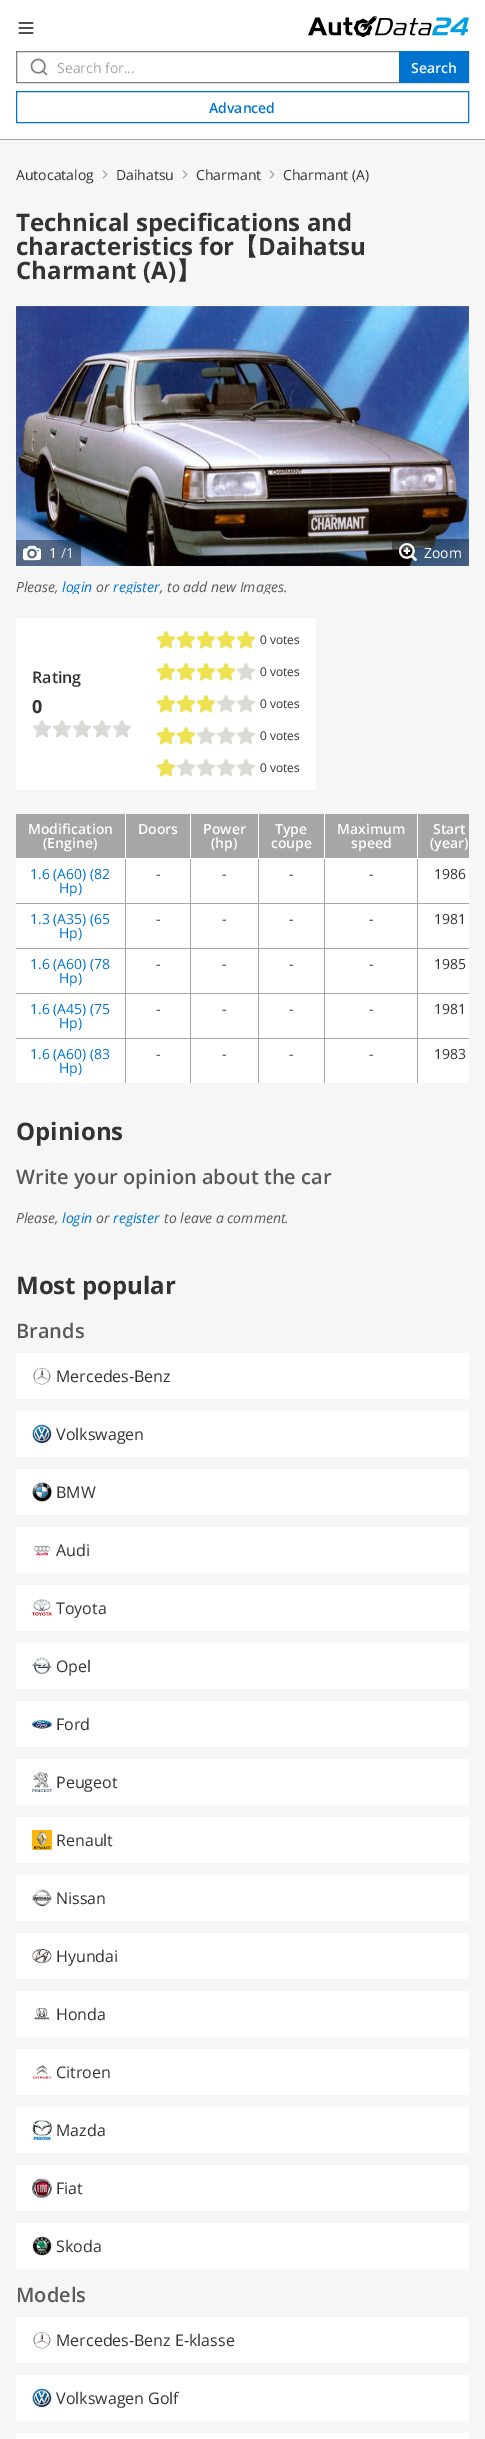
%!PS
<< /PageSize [485 2439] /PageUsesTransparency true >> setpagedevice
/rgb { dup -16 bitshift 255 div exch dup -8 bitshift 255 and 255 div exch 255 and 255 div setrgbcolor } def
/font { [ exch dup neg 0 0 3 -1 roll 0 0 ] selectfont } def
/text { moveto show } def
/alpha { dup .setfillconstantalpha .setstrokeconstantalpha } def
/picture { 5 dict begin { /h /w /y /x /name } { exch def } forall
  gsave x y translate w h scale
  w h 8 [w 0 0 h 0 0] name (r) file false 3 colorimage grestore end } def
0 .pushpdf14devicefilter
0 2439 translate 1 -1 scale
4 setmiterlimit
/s1 { /OpenSans-Regular 14 font 16#A6A6A6 rgb } def
/s2 { /OpenSans-SemiBold 14 font 16#FFFFFF rgb } def
/s3 { /OpenSans-SemiBold 14 font 16#0074CE rgb } def
/s4 { /OpenSans-Regular 14 font 16#333333 rgb } def
/s5 { /OpenSans-Bold 24 font 16#333333 rgb } def
/s6 { /WenQuanYiZenHei-Bold 24 font 16#333333 rgb } def
/s7 { /OpenSans-Regular 14 font 16#FFFFFF rgb } def
/s8 { /OpenSans-Regular 14 font 16#DDDDDD rgb } def
/s9 { /OpenSans-Italic 14 font 16#595959 rgb } def
/s10 { /OpenSans-Italic 14 font 16#0074CE rgb } def
/s11 { /OpenSans-SemiBold 16 font 16#333333 rgb } def
/s12 { /OpenSans-Bold 18 font 16#333333 rgb } def
/s13 { /OpenSans-Regular 12 font 16#333333 rgb } def
/s14 { /OpenSans-Regular 14 font 16#0074CE rgb } def
/s15 { /OpenSans-SemiBold 20 font 16#595959 rgb } def
/s16 { /OpenSans-Regular 16 font 16#333333 rgb } def
16#F6F6F6 rgb
0 0 485 2439 rectfill
16#FFFFFF rgb
0 0 485 139 rectfill
16#A6A6A6 rgb
0 139 485 1 rectfill
(pic1.raw) 18 22 16 12 picture
(pic2.raw) 308 16 161 21 picture
(pic3.raw) 30 58 18 18 picture
16#808080 rgb
16.5 51.5 452 31 rectstroke
s1
(Search for...) 57 73 text
16#0074CE rgb
399 51 70 32 rectfill
s2
(Search) 411 73 text
16#0074CE rgb
16.5 91.5 452 31 rectstroke
(Advanced) 209 113 text
s4
(Autocatalog) 16 180 text
(pic4.raw) 102 170 6 9 picture
(Daihatsu) 116 180 text
(pic4.raw) 182 170 6 9 picture
(Charmant) 196 180 text
(pic4.raw) 269 170 6 9 picture
(Charmant \(A\)) 283 180 text
s5
(Technical specifications and) 16 231 text
(characteristics for) 16 255 text
s6
(【) 234 255 text
s5
(Daihatsu) 258 255 text
(Charmant \(A\)) 16 279 text
s6
(】) 176 279 text
(pic5.raw) 16 306 453 260 picture
0.4 alpha
16#000000 rgb
16 540 65 26 rectfill
1 alpha
(pic6.raw) 23 545 18 16 picture
s7
(1) 49 558 text
s8
(/1) 61 558 text
0.4 alpha
16#000000 rgb
392 539 77 27 rectfill
1 alpha
(pic7.raw) 399 543 18 18 picture
s7
(Zoom) 424 558 text
s9
(Please,) 16 592 text
gsave
16 306 453 288 rectclip
s10
(login) 62 592 text
grestore
(or) 96 592 text
gsave
16 306 453 288 rectclip
s10
(register) 113 592 text
s9
(, to add new Images.) 160 592 text
grestore
16#FFFFFF rgb
16 618 300 172 rectfill
s11
(Rating) 32 683 text
s12
(0) 32 713 text
(pic8.raw) 32 720 20 18 picture
(pic8.raw) 52 720 20 18 picture
(pic8.raw) 72 720 20 18 picture
(pic8.raw) 92 720 20 18 picture
(pic8.raw) 112 720 20 18 picture
(pic9.raw) 157 631 99 18 picture
(pic10.raw) 156 630 100 19 picture
s13
(0 votes) 260 644 text
(pic9.raw) 157 663 99 18 picture
(pic11.raw) 156 662 80 19 picture
(0 votes) 260 676 text
(pic9.raw) 157 695 99 18 picture
(pic12.raw) 156 694 60 19 picture
(0 votes) 260 708 text
(pic9.raw) 157 727 99 18 picture
(pic13.raw) 156 726 40 19 picture
(0 votes) 260 740 text
(pic9.raw) 157 759 99 18 picture
(pic14.raw) 156 758 20 19 picture
(0 votes) 260 772 text
16#A6A6A6 rgb
16 814 109 44 rectfill
16 903 453 1 rectfill
16 948 453 1 rectfill
16 993 453 1 rectfill
16 1038 453 1 rectfill
417 858 1 225 rectfill
16#FFFFFF rgb
417 858 52 1 rectfill
417 814 1 45 rectfill
16#A6A6A6 rgb
324 858 1 225 rectfill
16#FFFFFF rgb
324 858 94 1 rectfill
324 814 1 45 rectfill
16#A6A6A6 rgb
258 858 1 225 rectfill
16#FFFFFF rgb
258 858 67 1 rectfill
258 814 1 45 rectfill
16#A6A6A6 rgb
190 858 1 225 rectfill
16#FFFFFF rgb
190 858 69 1 rectfill
190 814 1 45 rectfill
16#A6A6A6 rgb
125 858 1 225 rectfill
16#FFFFFF rgb
125 858 66 1 rectfill
125 814 1 45 rectfill
16 858 110 1 rectfill
s2
(Modification) 28 834 text
(\(Engine\)) 43 848 text
16#A6A6A6 rgb
126 814 64 44 rectfill
s2
(Doors) 138 834 text
16#A6A6A6 rgb
191 814 67 44 rectfill
s2
(Power) 203 834 text
(\(hp\)) 211 848 text
16#A6A6A6 rgb
259 814 65 44 rectfill
s2
(Type) 275 834 text
(coupe) 271 848 text
16#A6A6A6 rgb
325 814 92 44 rectfill
s2
(Maximum) 337 834 text
(speed) 351 848 text
16#A6A6A6 rgb
418 814 51 44 rectfill
s2
(Start) 433 834 text
(\(year\)) 430 848 text
16 859 109 44 rectfill
s14
(1.6 \(A60\) \(82) 30 879 text
(Hp\)) 59 893 text
16#FFFFFF rgb
126 859 64 44 rectfill
s4
(-) 156 879 text
16#FFFFFF rgb
191 859 67 44 rectfill
s4
(-) 222 879 text
16#FFFFFF rgb
259 859 65 44 rectfill
s4
(-) 289 879 text
16#FFFFFF rgb
325 859 92 44 rectfill
s4
(-) 369 879 text
16#FFFFFF rgb
418 859 51 44 rectfill
s4
(1986) 434 879 text
16#FFFFFF rgb
16 904 109 44 rectfill
s14
(1.3 \(A35\) \(65) 30 924 text
(Hp\)) 59 938 text
16#FFFFFF rgb
126 904 64 44 rectfill
s4
(-) 156 924 text
16#FFFFFF rgb
191 904 67 44 rectfill
s4
(-) 222 924 text
16#FFFFFF rgb
259 904 65 44 rectfill
s4
(-) 289 924 text
16#FFFFFF rgb
325 904 92 44 rectfill
s4
(-) 369 924 text
16#FFFFFF rgb
418 904 51 44 rectfill
s4
(1981) 434 924 text
16#FFFFFF rgb
16 949 109 44 rectfill
s14
(1.6 \(A60\) \(78) 30 969 text
(Hp\)) 59 983 text
16#FFFFFF rgb
126 949 64 44 rectfill
s4
(-) 156 969 text
16#FFFFFF rgb
191 949 67 44 rectfill
s4
(-) 222 969 text
16#FFFFFF rgb
259 949 65 44 rectfill
s4
(-) 289 969 text
16#FFFFFF rgb
325 949 92 44 rectfill
s4
(-) 369 969 text
16#FFFFFF rgb
418 949 51 44 rectfill
s4
(1985) 434 969 text
16#FFFFFF rgb
16 994 109 44 rectfill
s14
(1.6 \(A45\) \(75) 30 1014 text
(Hp\)) 59 1028 text
16#FFFFFF rgb
126 994 64 44 rectfill
s4
(-) 156 1014 text
16#FFFFFF rgb
191 994 67 44 rectfill
s4
(-) 222 1014 text
16#FFFFFF rgb
259 994 65 44 rectfill
s4
(-) 289 1014 text
16#FFFFFF rgb
325 994 92 44 rectfill
s4
(-) 369 1014 text
16#FFFFFF rgb
418 994 51 44 rectfill
s4
(1981) 434 1014 text
16#FFFFFF rgb
16 1039 109 44 rectfill
s14
(1.6 \(A60\) \(83) 30 1059 text
(Hp\)) 59 1073 text
16#FFFFFF rgb
126 1039 64 44 rectfill
s4
(-) 156 1059 text
16#FFFFFF rgb
191 1039 67 44 rectfill
s4
(-) 222 1059 text
16#FFFFFF rgb
259 1039 65 44 rectfill
s4
(-) 289 1059 text
16#FFFFFF rgb
325 1039 92 44 rectfill
s4
(-) 369 1059 text
16#FFFFFF rgb
418 1039 51 44 rectfill
s4
(1983) 434 1059 text
s5
(Opinions) 16 1140 text
s15
(Write your opinion about the car) 16 1184 text
s9
(Please,) 16 1223 text
s10
(login) 62 1223 text
s9
(or) 96 1223 text
s10
(register) 113 1223 text
s9
(to leave a comment.) 164 1223 text
s5
(Most popular) 16 1294 text
s15
(Brands) 16 1338 text
16#FFFFFF rgb
16 1353 453 46 rectfill
(pic15.raw) 33 1367 18 18 picture
s16
(Mercedes-Benz) 56 1382 text
16#FFFFFF rgb
16 1411 453 46 rectfill
(pic16.raw) 32 1424 20 20 picture
s16
(Volkswagen) 56 1440 text
16#FFFFFF rgb
16 1469 453 46 rectfill
(pic17.raw) 32 1482 20 20 picture
s16
(BMW) 56 1498 text
16#FFFFFF rgb
16 1527 453 46 rectfill
(pic18.raw) 34 1545 16 11 picture
s16
(Audi) 56 1556 text
16#FFFFFF rgb
16 1585 453 46 rectfill
(pic19.raw) 32 1599 20 17 picture
s16
(Toyota) 56 1614 text
16#FFFFFF rgb
16 1643 453 46 rectfill
(pic20.raw) 32 1657 20 18 picture
s16
(Opel) 56 1672 text
16#FFFFFF rgb
16 1701 453 46 rectfill
(pic21.raw) 32 1720 20 9 picture
s16
(Ford) 56 1730 text
16#FFFFFF rgb
16 1759 453 46 rectfill
(pic22.raw) 32 1772 20 20 picture
s16
(Peugeot) 56 1788 text
16#FFFFFF rgb
16 1817 453 46 rectfill
(pic23.raw) 32 1830 20 20 picture
s16
(Renault) 56 1846 text
16#FFFFFF rgb
16 1875 453 46 rectfill
(pic24.raw) 32 1889 20 18 picture
s16
(Nissan) 56 1904 text
16#FFFFFF rgb
16 1933 453 46 rectfill
(pic25.raw) 32 1948 20 16 picture
s16
(Hyundai) 56 1962 text
16#FFFFFF rgb
16 1991 453 46 rectfill
(pic26.raw) 34 2008 16 12 picture
s16
(Honda) 56 2020 text
16#FFFFFF rgb
16 2049 453 46 rectfill
(pic27.raw) 32 2064 20 15 picture
s16
(Citroen) 56 2078 text
16#FFFFFF rgb
16 2107 453 46 rectfill
(pic28.raw) 32 2120 20 20 picture
s16
(Mazda) 56 2136 text
16#FFFFFF rgb
16 2165 453 46 rectfill
(pic29.raw) 32 2178 20 20 picture
s16
(Fiat) 56 2194 text
16#FFFFFF rgb
16 2223 453 46 rectfill
(pic30.raw) 32 2236 20 20 picture
s16
(Skoda) 56 2252 text
s15
(Models) 16 2302 text
16#FFFFFF rgb
16 2317 453 46 rectfill
(pic15.raw) 33 2331 18 18 picture
s16
(Mercedes-Benz E-klasse) 56 2346 text
16#FFFFFF rgb
16 2375 453 46 rectfill
(pic16.raw) 32 2388 20 20 picture
s16
(Volkswagen Golf) 56 2404 text
16#FFFFFF rgb
16 2433 453 6 rectfill
.poppdf14devicefilter showpage
